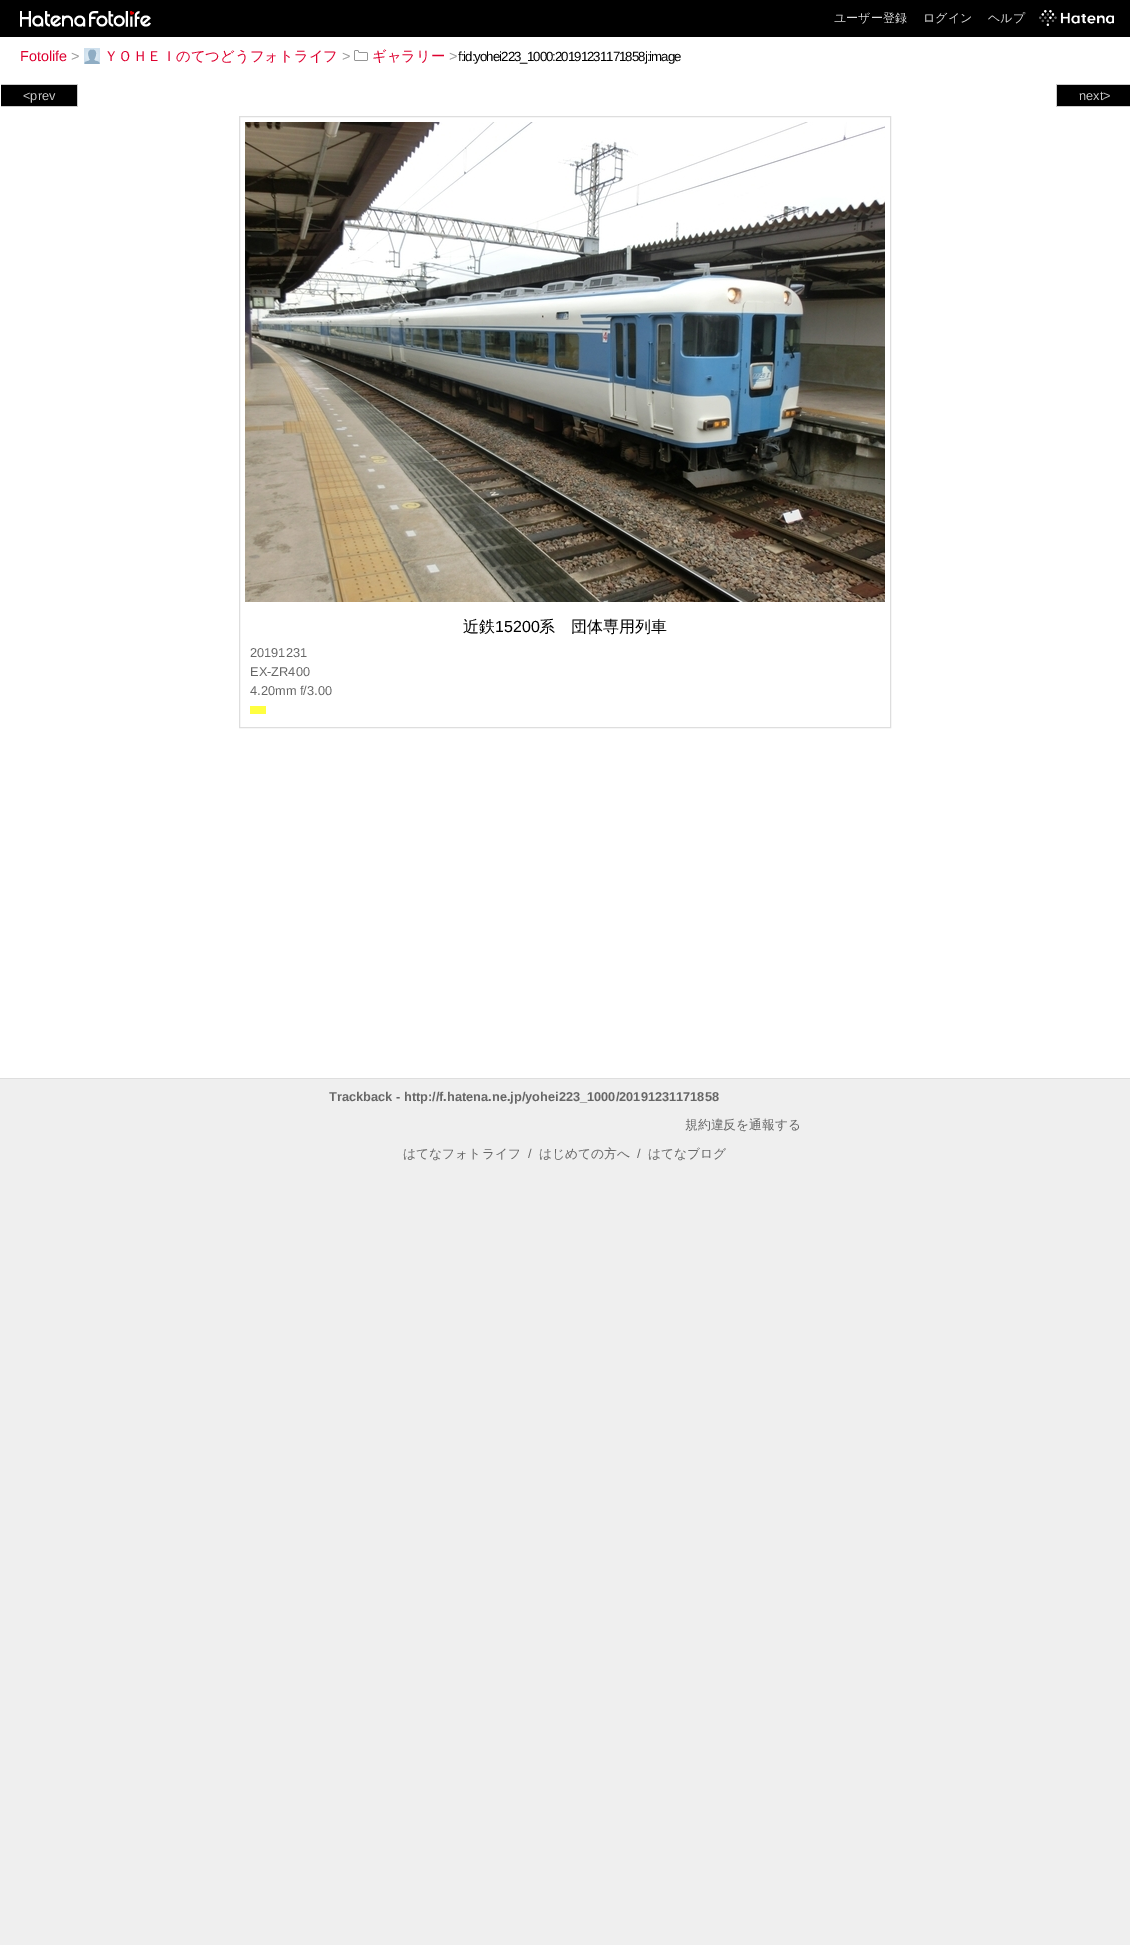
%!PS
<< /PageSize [1130 1945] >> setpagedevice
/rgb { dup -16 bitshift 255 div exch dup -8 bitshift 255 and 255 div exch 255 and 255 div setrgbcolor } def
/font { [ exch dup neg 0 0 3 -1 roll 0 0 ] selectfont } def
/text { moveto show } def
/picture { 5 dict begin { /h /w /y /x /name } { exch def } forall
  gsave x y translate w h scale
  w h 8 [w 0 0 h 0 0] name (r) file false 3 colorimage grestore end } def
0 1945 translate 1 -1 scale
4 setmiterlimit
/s1 { /WenQuanYiZenHei-Medium 12 font 16#DDDDDD rgb } def
/s2 { /LiberationSans-Regular 14.4 font 16#DE002F rgb } def
/s3 { /LiberationSans-Regular 14.4 font 16#999999 rgb } def
/s4 { /WenQuanYiZenHei-Medium 14.4 font 16#DE002F rgb } def
/s5 { /LiberationSans-Regular 12.8 font 16#CCCCCC rgb } def
/s6 { /WenQuanYiZenHei-Medium 16 font 16#000000 rgb } def
/s7 { /LiberationSans-Regular 16 font 16#000000 rgb } def
/s8 { /LiberationSans-Regular 12.8 font 16#666666 rgb } def
/s9 { /LiberationSans-Bold 12.8 font 16#666666 rgb } def
/s10 { /WenQuanYiZenHei-Medium 12.8 font 16#666666 rgb } def
16#EFEFEF rgb
0 0 1130 1945 rectfill
16#000000 rgb
0 0 1130 37 rectfill
(pic1.raw) 20 11 66 16 picture
(pic2.raw) 89 11 62 16 picture
s1
(ユーザー登録) 834 22 text
(ログイン) 923 22 text
(ヘルプ) 988 22 text
(pic3.raw) 1039 10 75 16 picture
16#FFFFFF rgb
0 37 1130 1041 rectfill
s2
(Fotolife) 20 61 text
s3
(>) 71 61 text
(pic4.raw) 84 48 16 16 picture
s4
(ＹＯＨＥＩのてつどうフォトライフ) 104 61 text
s3
(>) 342 61 text
(pic5.raw) 354 50 14 11 picture
s4
(ギャラリー) 372 61 text
s3
(>) 449 61 text
/LiberationSans-Regular 13.3 font
16#000000 rgb
458 61 moveto -1 0 (f:id:yohei223_1000:20191231171858j:image) ashow
16#DEDEDE rgb
0 1078 1130 1 rectfill
16#000000 rgb
1 85 76 21 rectfill
16#CCCCCC rgb
1 84 77 1 rectfill
77 84 1 23 rectfill
1 106 77 1 rectfill
s5
(<prev) 23 100 text
16#000000 rgb
1057 85 73 21 rectfill
16#CCCCCC rgb
1056 84 74 1 rectfill
1056 106 74 1 rectfill
1056 84 1 23 rectfill
(next>) 1079 100 text
16#DEDEDE rgb
239.5 116.5 651 611 rectstroke
(pic6.raw) 245 122 640 480 picture
s6
(近鉄) 463 632 text
s7
(15200) 495 632 text
s6
(系　団体専用列車) 539 632 text
s8
(20191231) 250 657 text
(EX-ZR400) 250 676 text
(4.20mm f/3.00) 250 695 text
16#FFFF40 rgb
250 706 16 8 rectfill
s9
(Trackback - http://f.hatena.ne.jp/yohei223_1000/20191231171858) 329 1101 text
s10
(規約違反を通報する) 685 1129 text
(はてなフォトライフ) 403 1158 text
s8
(/) 528 1158 text
s10
(はじめての方へ) 539 1158 text
s8
(/) 637 1158 text
s10
(はてなブログ) 648 1158 text
showpage
